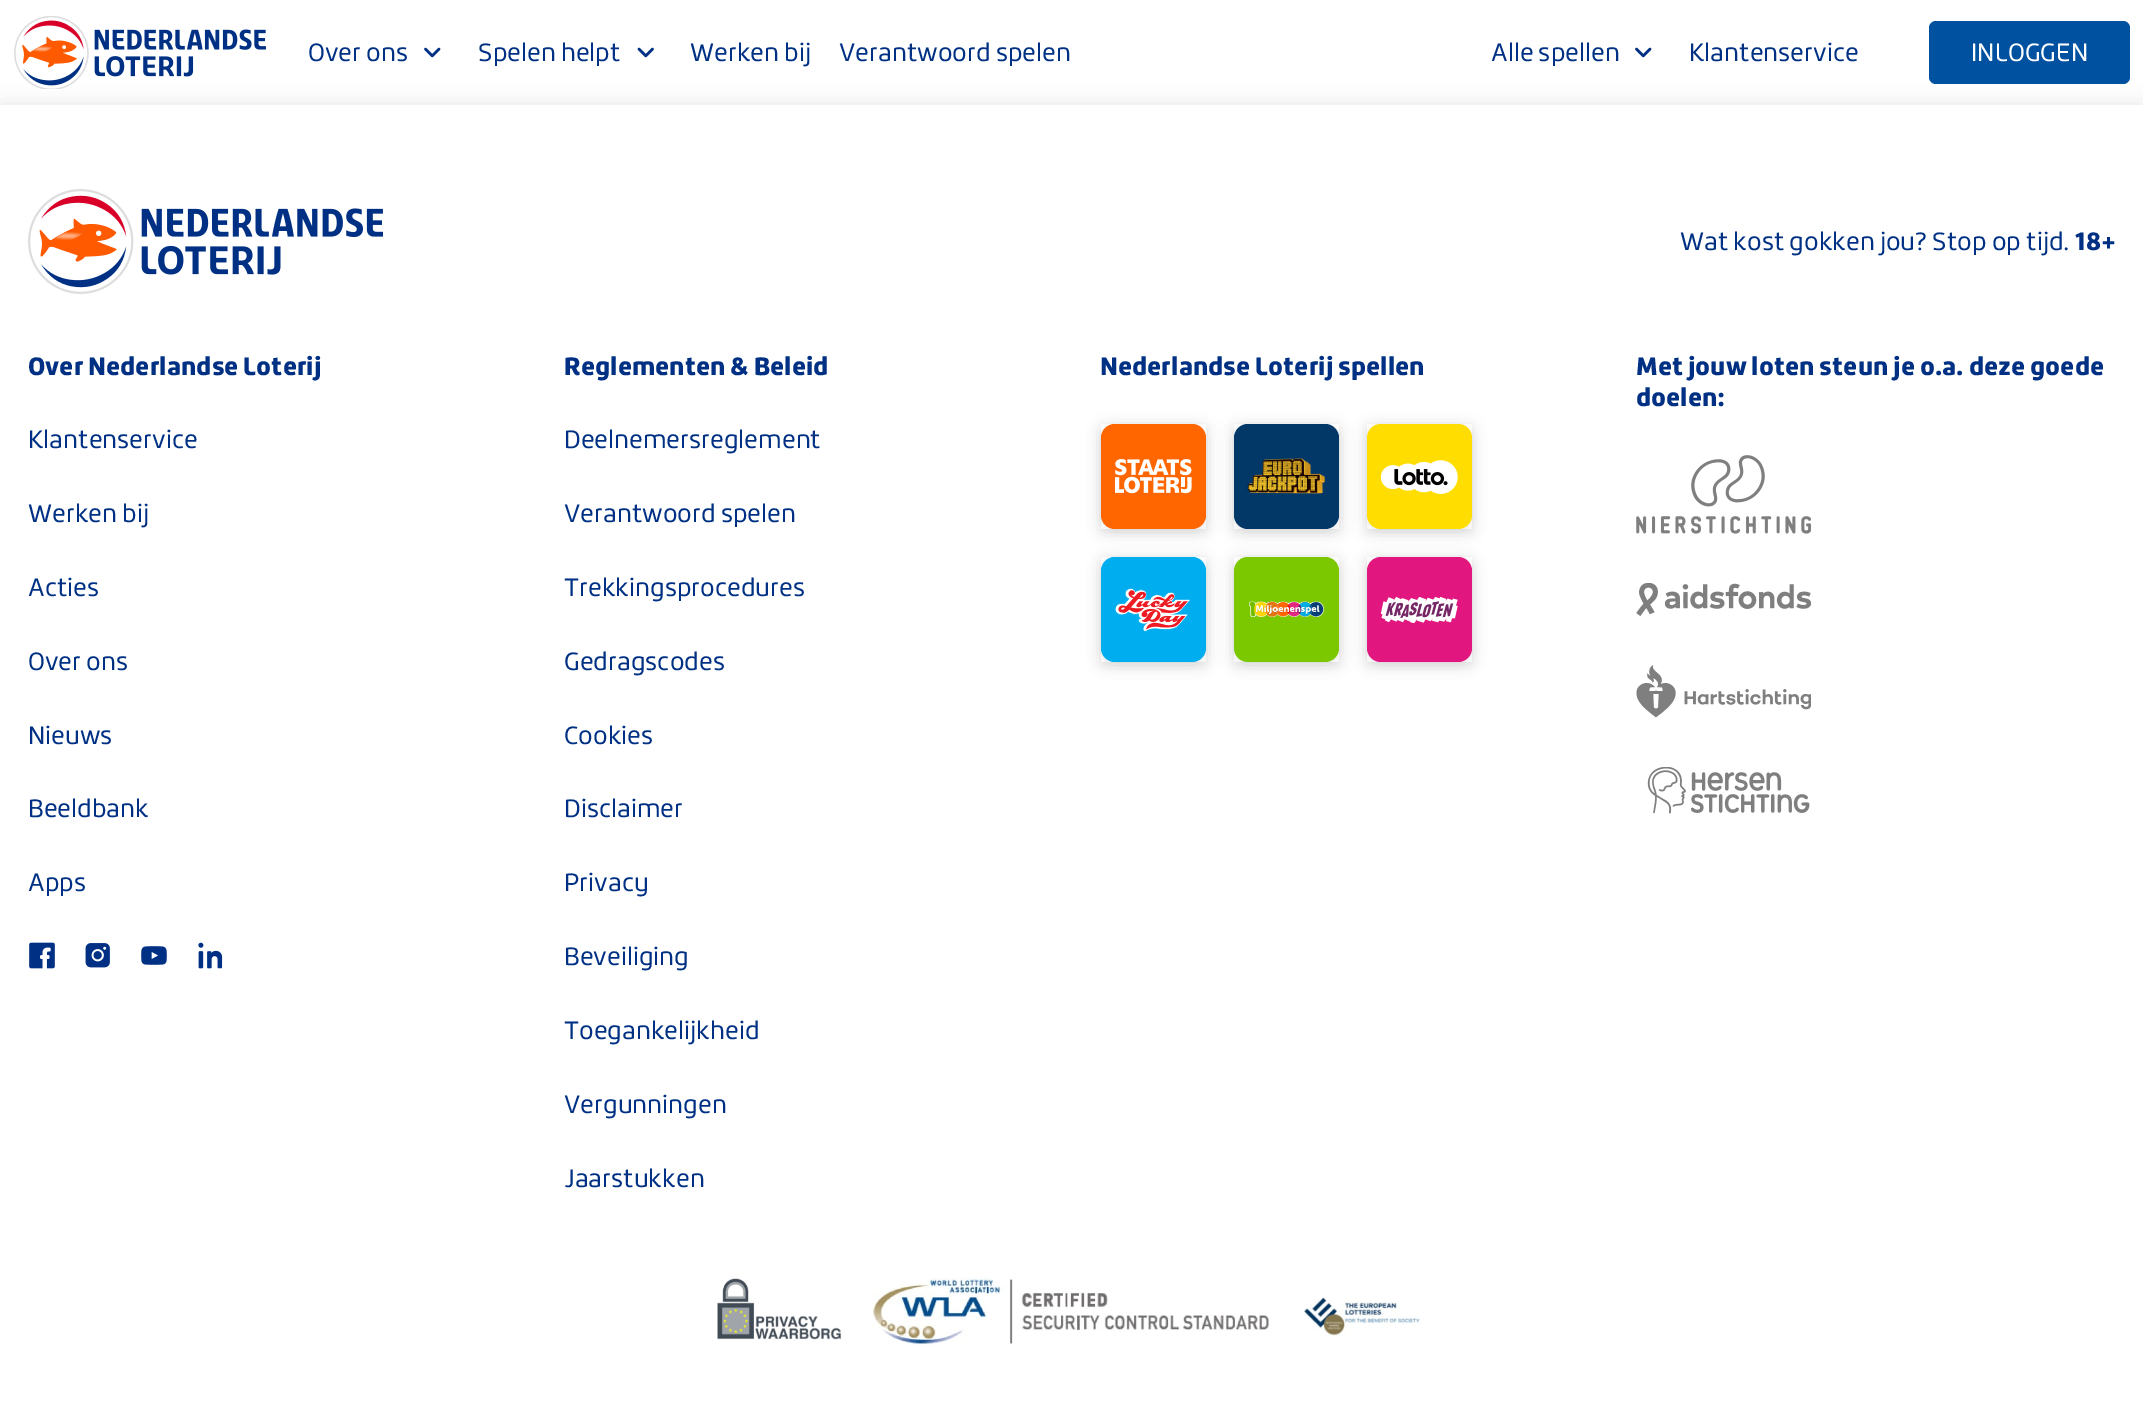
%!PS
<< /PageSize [2143 1403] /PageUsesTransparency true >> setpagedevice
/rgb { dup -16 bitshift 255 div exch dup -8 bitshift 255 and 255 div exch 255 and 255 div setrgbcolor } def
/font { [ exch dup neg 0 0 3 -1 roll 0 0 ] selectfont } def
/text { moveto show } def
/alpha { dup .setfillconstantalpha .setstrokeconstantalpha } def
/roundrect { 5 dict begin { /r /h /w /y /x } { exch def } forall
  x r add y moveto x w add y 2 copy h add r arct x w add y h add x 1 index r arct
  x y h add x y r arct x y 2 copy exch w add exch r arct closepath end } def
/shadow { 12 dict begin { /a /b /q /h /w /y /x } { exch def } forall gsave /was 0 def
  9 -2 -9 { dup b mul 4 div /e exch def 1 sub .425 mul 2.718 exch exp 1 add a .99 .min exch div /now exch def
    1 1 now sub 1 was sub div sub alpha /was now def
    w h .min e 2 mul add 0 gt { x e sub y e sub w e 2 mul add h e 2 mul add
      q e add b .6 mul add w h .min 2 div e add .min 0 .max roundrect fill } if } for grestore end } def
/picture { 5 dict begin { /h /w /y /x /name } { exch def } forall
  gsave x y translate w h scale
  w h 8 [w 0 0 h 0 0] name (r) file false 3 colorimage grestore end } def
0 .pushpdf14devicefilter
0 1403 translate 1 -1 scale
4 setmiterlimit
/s1 { /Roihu-Regular 24.5 font 16#003084 rgb } def
/s2 { /Roihu-Regular 24.5 font 16#FFFFFF rgb } def
/s3 { /Roihu-Black 24.5 font 16#003084 rgb } def
16#FFFFFF rgb
0 0 2143 1403 rectfill
16#000000 rgb
0 105 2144 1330 0 10.5 0.1 shadow
(pic1.raw) 14 16 252 73 picture
s1
(Over ons) 308 61 text
(pic2.raw) 424 47 17 11 picture
(Spelen helpt) 478 61 text
(pic3.raw) 637 47 17 11 picture
(Werken bij) 690 61 text
(Verantwoord spelen) 839 61 text
(Alle spellen) 1491 61 text
(pic2.raw) 1635 47 17 11 picture
(Klantenservice) 1689 61 text
16#00519F rgb
1929 21 201 63 7 roundrect fill
s2
(INLOGGEN) 1971 61 text
0 105 2143 1298 rectfill
(pic4.raw) 28 189 355 105 picture
s1
(Wat kost gokken jou? Stop op tijd.) 1680 250 text
s3
(18+) 2075 250 text
(Over Nederlandse Loterij) 28 375 text
s1
(Klantenservice) 28 448 text
(Werken bij) 28 522 text
(Acties) 28 596 text
(Over ons) 28 670 text
(Nieuws) 28 744 text
(Beeldbank) 28 817 text
(Apps) 28 891 text
(pic5.raw) 29 942 26 27 picture
(pic6.raw) 85 943 25 25 picture
(pic7.raw) 141 946 26 19 picture
(pic8.raw) 198 942 25 27 picture
s3
(Reglementen & Beleid) 564 375 text
s1
(Deelnemersreglement) 564 448 text
(Verantwoord spelen) 564 522 text
(Trekkingsprocedures) 564 596 text
(Gedragscodes) 564 670 text
(Cookies) 564 744 text
(Disclaimer) 564 817 text
(Privacy) 564 891 text
(Beveiliging) 564 965 text
(Toegankelijkheid) 564 1039 text
(Vergunningen) 564 1113 text
(Jaarstukken) 564 1187 text
s3
(Nederlandse Loterij spellen) 1100 375 text
gsave
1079 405 moveto 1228 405 lineto 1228 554 lineto 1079 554 lineto closepath 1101 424 moveto 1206 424 lineto 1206 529 lineto 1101 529 lineto closepath eoclip newpath
16#000000 rgb
1101 427 105 105 0 7 0.1 shadow
grestore
16#000000 rgb
1101 427 105 105 14 7 0.1 shadow
16#FF6600 rgb
1101 424 105 105 14 roundrect fill
(pic9.raw) 1115 459 77 35 picture
gsave
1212 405 moveto 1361 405 lineto 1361 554 lineto 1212 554 lineto closepath 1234 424 moveto 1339 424 lineto 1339 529 lineto 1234 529 lineto closepath eoclip newpath
16#000000 rgb
1234 427 105 105 0 7 0.1 shadow
grestore
16#000000 rgb
1234 427 105 105 14 7 0.1 shadow
16#013867 rgb
1234 424 105 105 14 roundrect fill
(pic10.raw) 1247 458 78 36 picture
gsave
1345 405 moveto 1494 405 lineto 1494 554 lineto 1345 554 lineto closepath 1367 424 moveto 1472 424 lineto 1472 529 lineto 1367 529 lineto closepath eoclip newpath
16#000000 rgb
1367 427 105 105 0 7 0.1 shadow
grestore
16#000000 rgb
1367 427 105 105 14 7 0.1 shadow
16#FFDD00 rgb
1367 424 105 105 14 roundrect fill
(pic11.raw) 1381 460 77 34 picture
gsave
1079 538 moveto 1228 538 lineto 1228 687 lineto 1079 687 lineto closepath 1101 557 moveto 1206 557 lineto 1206 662 lineto 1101 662 lineto closepath eoclip newpath
16#000000 rgb
1101 560 105 105 0 7 0.1 shadow
grestore
16#000000 rgb
1101 560 105 105 14 7 0.1 shadow
16#00AEEF rgb
1101 557 105 105 14 roundrect fill
(pic12.raw) 1115 588 76 44 picture
gsave
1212 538 moveto 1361 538 lineto 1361 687 lineto 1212 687 lineto closepath 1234 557 moveto 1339 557 lineto 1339 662 lineto 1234 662 lineto closepath eoclip newpath
16#000000 rgb
1234 560 105 105 0 7 0.1 shadow
grestore
16#000000 rgb
1234 560 105 105 14 7 0.1 shadow
16#7BC700 rgb
1234 557 105 105 14 roundrect fill
(pic13.raw) 1249 601 75 16 picture
gsave
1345 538 moveto 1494 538 lineto 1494 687 lineto 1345 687 lineto closepath 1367 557 moveto 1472 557 lineto 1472 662 lineto 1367 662 lineto closepath eoclip newpath
16#000000 rgb
1367 560 105 105 0 7 0.1 shadow
grestore
16#000000 rgb
1367 560 105 105 14 7 0.1 shadow
16#E1177F rgb
1367 557 105 105 14 roundrect fill
(pic14.raw) 1381 597 77 26 picture
s3
(Met jouw loten steun je o.a. deze goede) 1636 375 text
(doelen:) 1636 406 text
(pic15.raw) 1636 455 175 79 picture
(pic16.raw) 1636 583 175 33 picture
(pic17.raw) 1636 665 175 53 picture
(pic18.raw) 1647 767 163 47 picture
(pic19.raw) 717 1278 125 62 picture
(pic20.raw) 872 1277 397 69 picture
(pic21.raw) 1303 1297 117 39 picture
.poppdf14devicefilter showpage
